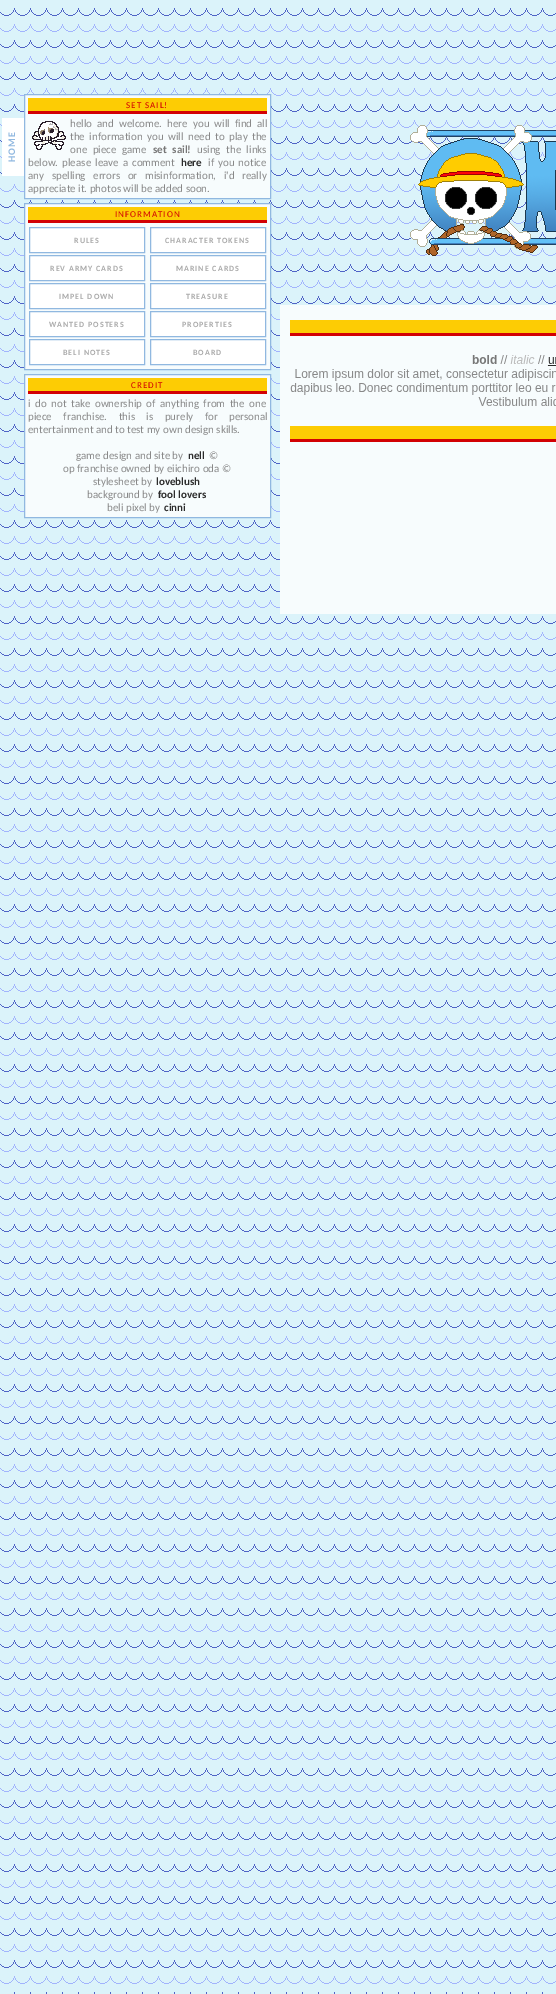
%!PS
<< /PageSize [556 1994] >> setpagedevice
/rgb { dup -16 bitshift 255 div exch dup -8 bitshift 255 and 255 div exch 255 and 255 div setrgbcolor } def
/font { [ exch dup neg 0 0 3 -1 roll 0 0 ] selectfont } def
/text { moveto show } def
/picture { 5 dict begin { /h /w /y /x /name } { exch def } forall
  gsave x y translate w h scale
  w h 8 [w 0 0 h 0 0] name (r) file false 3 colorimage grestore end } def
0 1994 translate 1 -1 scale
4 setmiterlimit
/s1 { /Carlito-Bold 11 font 16#2B2B2B rgb } def
/s2 { /Carlito-Regular 11 font 16#888888 rgb } def
16#DBF3FA rgb
0 0 556 1994 rectfill
(pic1.raw) 0 8 556 1986 picture
16#FFFFFF rgb
2 118 22 58 rectfill
/Carlito-Bold 10 font
16#90B8E0 rgb
gsave 15 162 translate -90 rotate 0 0 moveto 1 0 (HOME) ashow grestore
16#F7FCFD rgb
24.5 94.5 moveto 270.5 94.5 lineto 270.5 198.5 lineto 24.5 198.5 lineto closepath gsave fill grestore
16#90B8E0 rgb
stroke
16#FDCC04 rgb
28 98 239 13 rectfill
16#D20104 rgb
28 111 239 3 rectfill
/Carlito-Regular 9 font
126 108 moveto 1 0 (SET SAIL!) ashow
(pic2.raw) 32 121 34 29 picture
/Carlito-Regular 11 font
16#888888 rgb
70 127 moveto 2.5 0 32 (hello and welcome. here you will find all) widthshow
70 140 moveto 2 0 32 (the information you will need to play the) widthshow
70 153 moveto 3 0 32 (one piece game) widthshow
/Carlito-Bold 11 font
16#777777 rgb
153 153 moveto 3 0 32 (set sail!) widthshow
/Carlito-Regular 11 font
16#888888 rgb
197 153 moveto 3 0 32 (using the links) widthshow
28 166 moveto 1.5 0 32 (below. please leave a comment) widthshow
s1
(here) 181 166 text
/Carlito-Regular 11 font
16#888888 rgb
208 166 moveto 1.5 0 32 (if you notice) widthshow
28 179 moveto 5 0 32 (any spelling errors or misinformation, i'd really) widthshow
(appreciate it. photos will be added soon.) 28 192 text
16#F7FCFD rgb
24.5 203.5 moveto 270.5 203.5 lineto 270.5 369.5 lineto 24.5 369.5 lineto closepath gsave fill grestore
16#90B8E0 rgb
stroke
16#FDCC04 rgb
28 207 239 13 rectfill
16#D20104 rgb
28 220 239 3 rectfill
/Carlito-Regular 9 font
115 217 moveto 1 0 (INFORMATION) ashow
16#FFFFFF rgb
29.5 227.5 moveto 144.5 227.5 lineto 144.5 252.5 lineto 29.5 252.5 lineto closepath gsave fill grestore
16#90B8E0 rgb
stroke
/Carlito-Bold 8 font
16#AAAAAA rgb
74 243 moveto 1 0 (RULES) ashow
16#FFFFFF rgb
29.5 255.5 moveto 144.5 255.5 lineto 144.5 280.5 lineto 29.5 280.5 lineto closepath gsave fill grestore
16#90B8E0 rgb
stroke
16#AAAAAA rgb
50 271 moveto 1 0 (REV ARMY CARDS) ashow
16#FFFFFF rgb
29.5 283.5 moveto 144.5 283.5 lineto 144.5 308.5 lineto 29.5 308.5 lineto closepath gsave fill grestore
16#90B8E0 rgb
stroke
16#AAAAAA rgb
59 299 moveto 1 0 (IMPEL DOWN) ashow
16#FFFFFF rgb
29.5 311.5 moveto 144.5 311.5 lineto 144.5 336.5 lineto 29.5 336.5 lineto closepath gsave fill grestore
16#90B8E0 rgb
stroke
16#AAAAAA rgb
49 327 moveto 1 0 (WANTED POSTERS) ashow
16#FFFFFF rgb
29.5 339.5 moveto 144.5 339.5 lineto 144.5 364.5 lineto 29.5 364.5 lineto closepath gsave fill grestore
16#90B8E0 rgb
stroke
16#AAAAAA rgb
63 355 moveto 1 0 (BELI NOTES) ashow
16#FFFFFF rgb
150.5 227.5 moveto 265.5 227.5 lineto 265.5 252.5 lineto 150.5 252.5 lineto closepath gsave fill grestore
16#90B8E0 rgb
stroke
16#AAAAAA rgb
165 243 moveto 1 0 (CHARACTER TOKENS) ashow
16#FFFFFF rgb
150.5 255.5 moveto 265.5 255.5 lineto 265.5 280.5 lineto 150.5 280.5 lineto closepath gsave fill grestore
16#90B8E0 rgb
stroke
16#AAAAAA rgb
176 271 moveto 1 0 (MARINE CARDS) ashow
16#FFFFFF rgb
150.5 283.5 moveto 265.5 283.5 lineto 265.5 308.5 lineto 150.5 308.5 lineto closepath gsave fill grestore
16#90B8E0 rgb
stroke
16#AAAAAA rgb
186 299 moveto 1 0 (TREASURE) ashow
16#FFFFFF rgb
150.5 311.5 moveto 265.5 311.5 lineto 265.5 336.5 lineto 150.5 336.5 lineto closepath gsave fill grestore
16#90B8E0 rgb
stroke
16#AAAAAA rgb
182 327 moveto 1 0 (PROPERTIES) ashow
16#FFFFFF rgb
150.5 339.5 moveto 265.5 339.5 lineto 265.5 364.5 lineto 150.5 364.5 lineto closepath gsave fill grestore
16#90B8E0 rgb
stroke
16#AAAAAA rgb
193 355 moveto 1 0 (BOARD) ashow
16#F7FCFD rgb
24.5 374.5 moveto 270.5 374.5 lineto 270.5 517.5 lineto 24.5 517.5 lineto closepath gsave fill grestore
16#90B8E0 rgb
stroke
16#FDCC04 rgb
28 378 239 13 rectfill
16#D20104 rgb
28 391 239 3 rectfill
/Carlito-Regular 9 font
131 388 moveto 1 0 (CREDIT) ashow
/Carlito-Regular 11 font
16#888888 rgb
28 407 moveto 2 0 32 (i do not take ownership of anything from the one) widthshow
28 420 moveto 9 0 32 (piece franchise. this is purely for personal) widthshow
(entertainment and to test my own design skills.) 28 433 text
(game design and site by) 76 459 text
s1
(nell) 188 459 text
s2
(©) 209 459 text
(op franchise owned by eiichiro oda ©) 63 472 text
(stylesheet by) 93 485 text
s1
(loveblush) 156 485 text
s2
(background by) 87 498 text
s1
(fool lovers) 158 498 text
s2
(beli pixel by) 107 511 text
s1
(cinni) 164 511 text
(pic3.raw) 410 125 146 131 picture
16#F7FCFD rgb
280 305 276 309 rectfill
(pic4.raw) 290 320 266 122 picture
showpage
